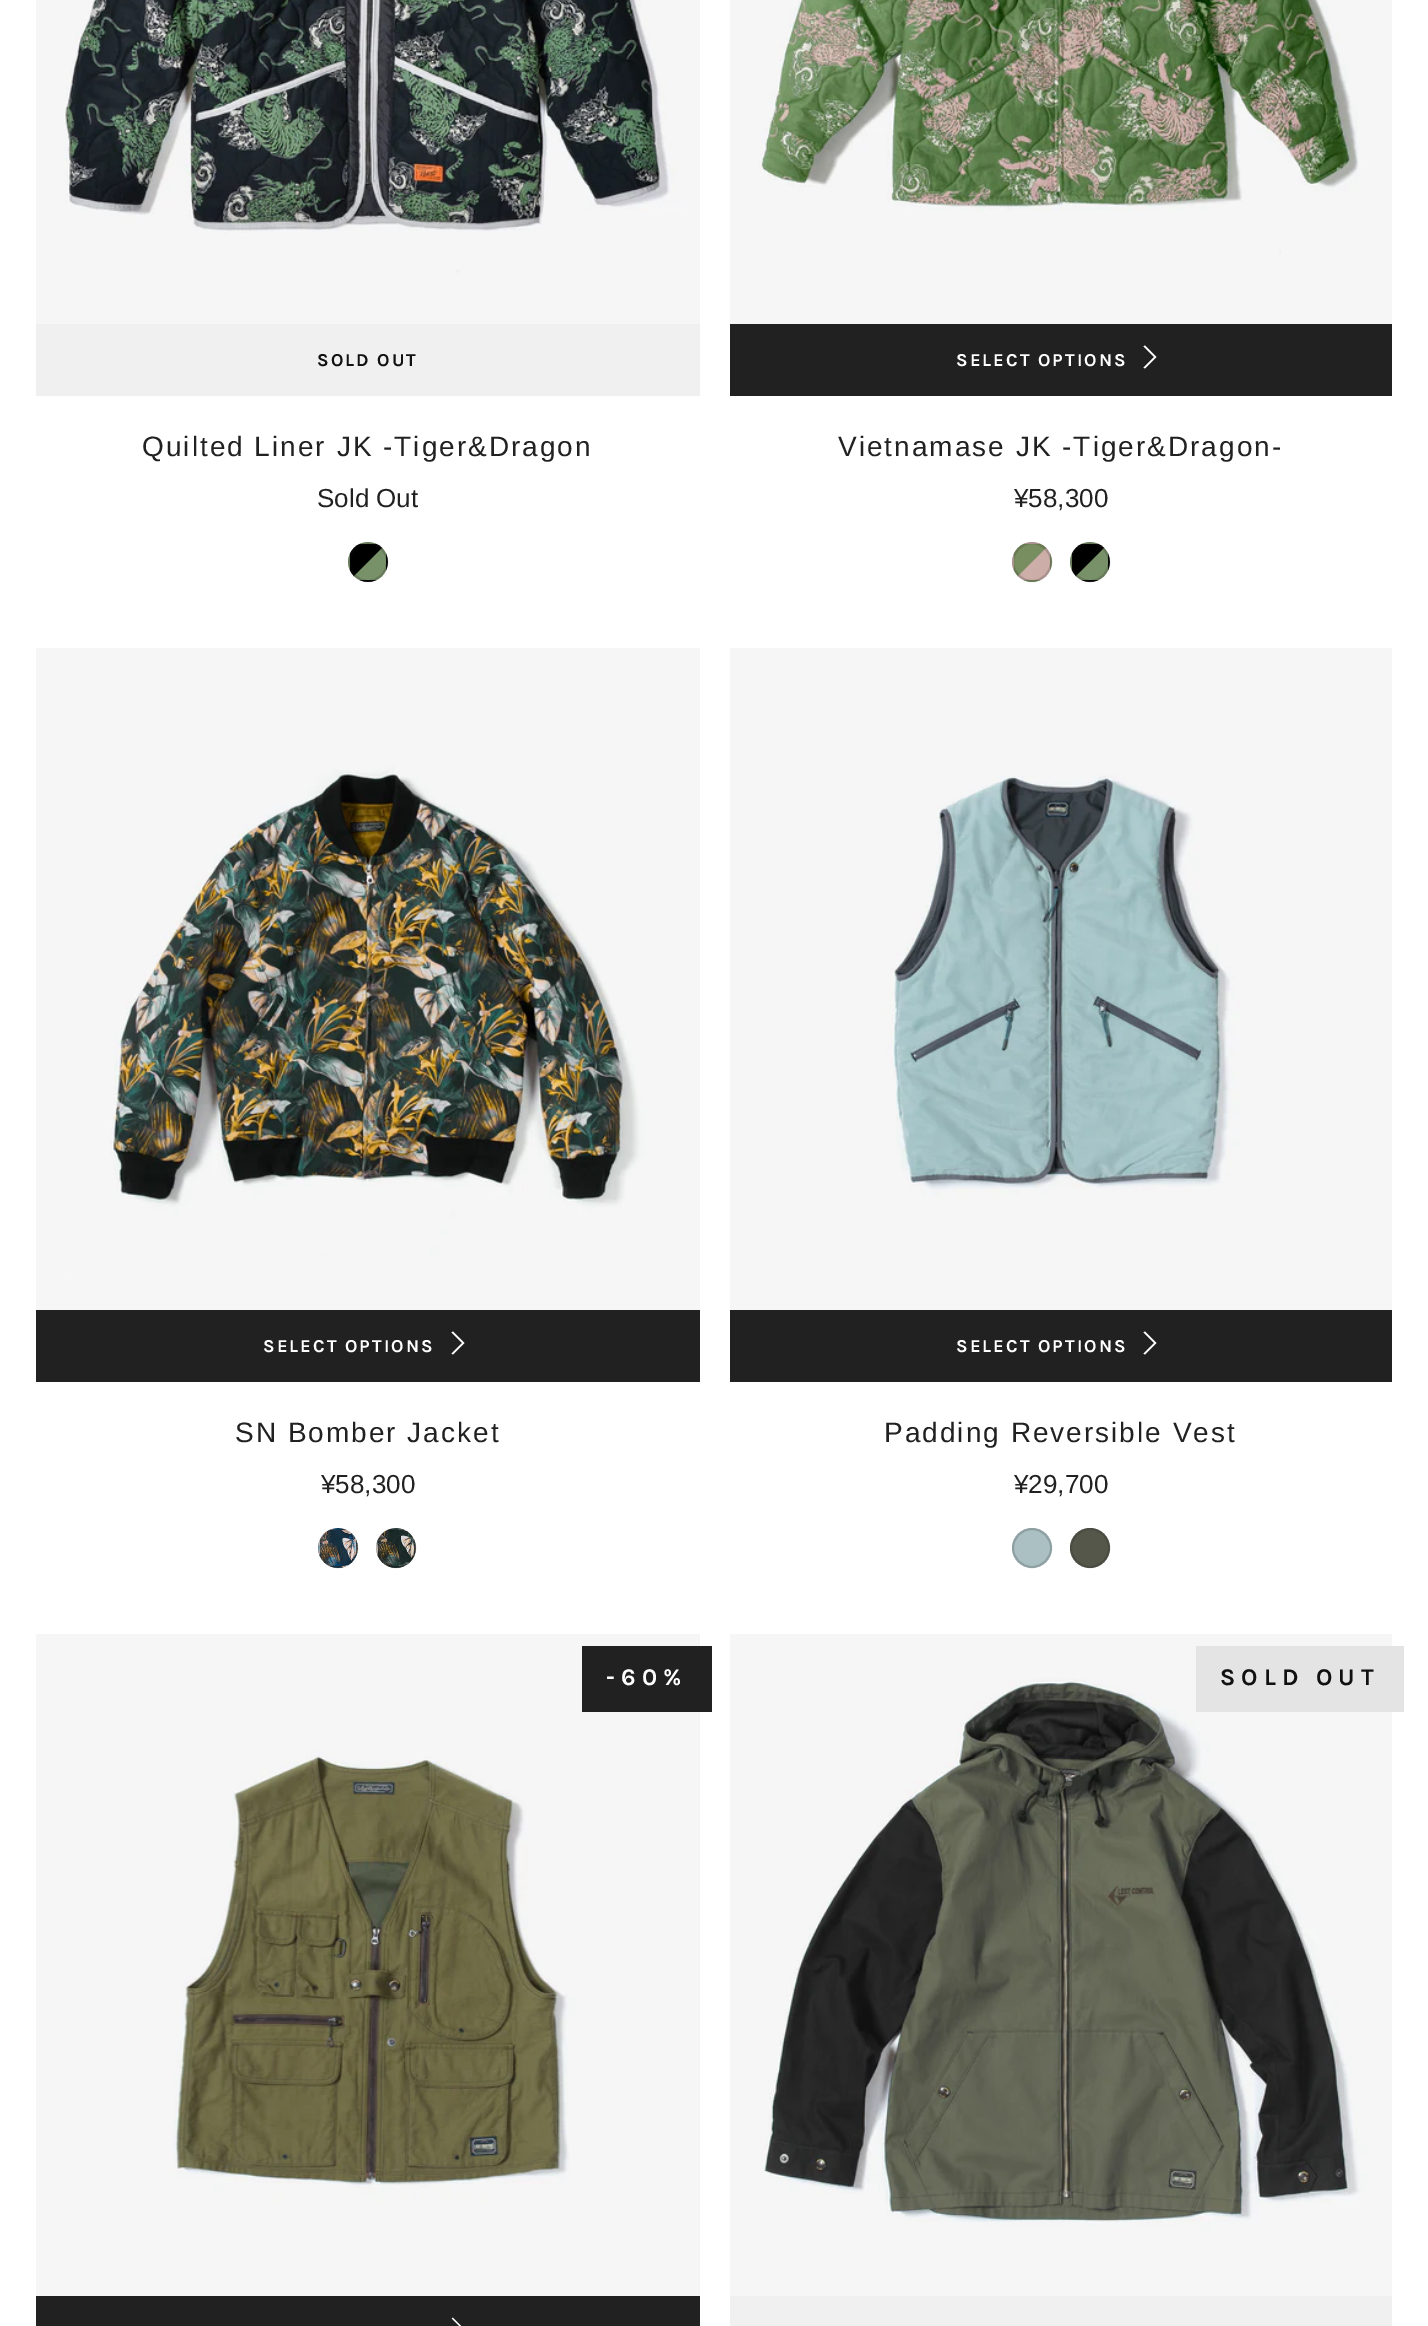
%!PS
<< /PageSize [1428 2326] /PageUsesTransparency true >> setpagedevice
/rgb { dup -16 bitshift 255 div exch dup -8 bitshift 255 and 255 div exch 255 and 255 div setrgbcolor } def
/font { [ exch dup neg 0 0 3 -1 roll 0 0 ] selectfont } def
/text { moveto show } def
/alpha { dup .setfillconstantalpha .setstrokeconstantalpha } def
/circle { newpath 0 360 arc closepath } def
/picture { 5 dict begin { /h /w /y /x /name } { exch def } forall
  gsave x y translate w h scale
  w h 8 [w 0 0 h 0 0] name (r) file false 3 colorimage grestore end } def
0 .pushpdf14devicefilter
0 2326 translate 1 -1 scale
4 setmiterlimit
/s1 { /LiberationSans-Regular 26 font 16#212121 rgb } def
16#FFFFFF rgb
0 0 1428 2326 rectfill
(pic1.raw) 36 0 664 324 picture
16#F0F0F0 rgb
36 324 664 72 rectfill
/Karla-Bold 18.25 font
16#111111 rgb
317 366 moveto 2 0 (SOLD OUT) ashow
/LiberationSans-Regular 28 font
16#212121 rgb
142 456 moveto 2 0 (Quilted Liner JK -Tiger&Dragon) ashow
s1
(Sold Out) 317 507 text
16#DDDDDD rgb
368 562 20 circle fill
(pic2.raw) 348 542 40 40 picture
0.2 alpha
16#212121 rgb
2 setlinewidth
368 562 19 circle stroke
1 alpha
(pic3.raw) 730 0 662 324 picture
730 324 662 72 rectfill
/Karla-Bold 18.25 font
16#FFFFFF rgb
956 366 moveto 2 0 (SELECT OPTIONS) ashow
1143.5 367.5 moveto 1145 368.5 lineto 1156.5 357 lineto 1145 345.5 lineto 1143.5 346.5 lineto 1154 357 lineto closepath fill
/LiberationSans-Regular 28 font
16#212121 rgb
838 456 moveto 2 0 (Vietnamase JK -Tiger&Dragon-) ashow
s1
(¥58,300) 1014 507 text
16#DDDDDD rgb
1032 562 20 circle fill
(pic4.raw) 1012 542 40 40 picture
0.2 alpha
16#212121 rgb
1032 562 19 circle stroke
1 alpha
16#DDDDDD rgb
1090 562 20 circle fill
(pic5.raw) 1070 542 40 40 picture
0.2 alpha
16#212121 rgb
1090 562 19 circle stroke
1 alpha
(pic6.raw) 36 648 664 662 picture
36 1310 664 72 rectfill
/Karla-Bold 18.25 font
16#FFFFFF rgb
263 1352 moveto 2 0 (SELECT OPTIONS) ashow
451.5 1353.5 moveto 453 1354.5 lineto 464.5 1343 lineto 453 1331.5 lineto 451.5 1332.5 lineto 462 1343 lineto closepath fill
/LiberationSans-Regular 28 font
16#212121 rgb
235 1442 moveto 2 0 (SN Bomber Jacket) ashow
s1
(¥58,300) 321 1493 text
16#DDDDDD rgb
338 1548 20 circle fill
(pic7.raw) 318 1528 40 40 picture
0.2 alpha
16#212121 rgb
338 1548 19 circle stroke
1 alpha
16#DDDDDD rgb
396 1548 20 circle fill
(pic8.raw) 376 1528 40 40 picture
0.2 alpha
16#212121 rgb
396 1548 19 circle stroke
1 alpha
(pic9.raw) 730 648 662 662 picture
730 1310 662 72 rectfill
/Karla-Bold 18.25 font
16#FFFFFF rgb
956 1352 moveto 2 0 (SELECT OPTIONS) ashow
1143.5 1353.5 moveto 1145 1354.5 lineto 1156.5 1343 lineto 1145 1331.5 lineto 1143.5 1332.5 lineto 1154 1343 lineto closepath fill
/LiberationSans-Regular 28 font
16#212121 rgb
884 1442 moveto 2 0 (Padding Reversible Vest) ashow
s1
(¥29,700) 1014 1493 text
16#ABC0C3 rgb
1032 1548 20 circle fill
0.2 alpha
16#212121 rgb
1032 1548 19 circle stroke
1 alpha
16#55574A rgb
1090 1548 20 circle fill
0.2 alpha
16#212121 rgb
1090 1548 19 circle stroke
1 alpha
(pic11.raw) 699 1634 1 662 picture
(pic10.raw) 36 1634 664 662 picture
36 2296 664 30 rectfill
(pic12.raw) 451 2317 11 9 picture
582 1646 130 66 rectfill
/Karla-Bold 24 font
16#FFFFFF rgb
606 1685 moveto 6 0 (-60%) ashow
(pic13.raw) 730 1634 662 662 picture
16#F0F0F0 rgb
730 2296 662 30 rectfill
16#E4E4E4 rgb
1196 1646 208 66 rectfill
16#111111 rgb
1220 1685 moveto 6 0 (SOLD OUT) ashow
.poppdf14devicefilter showpage
